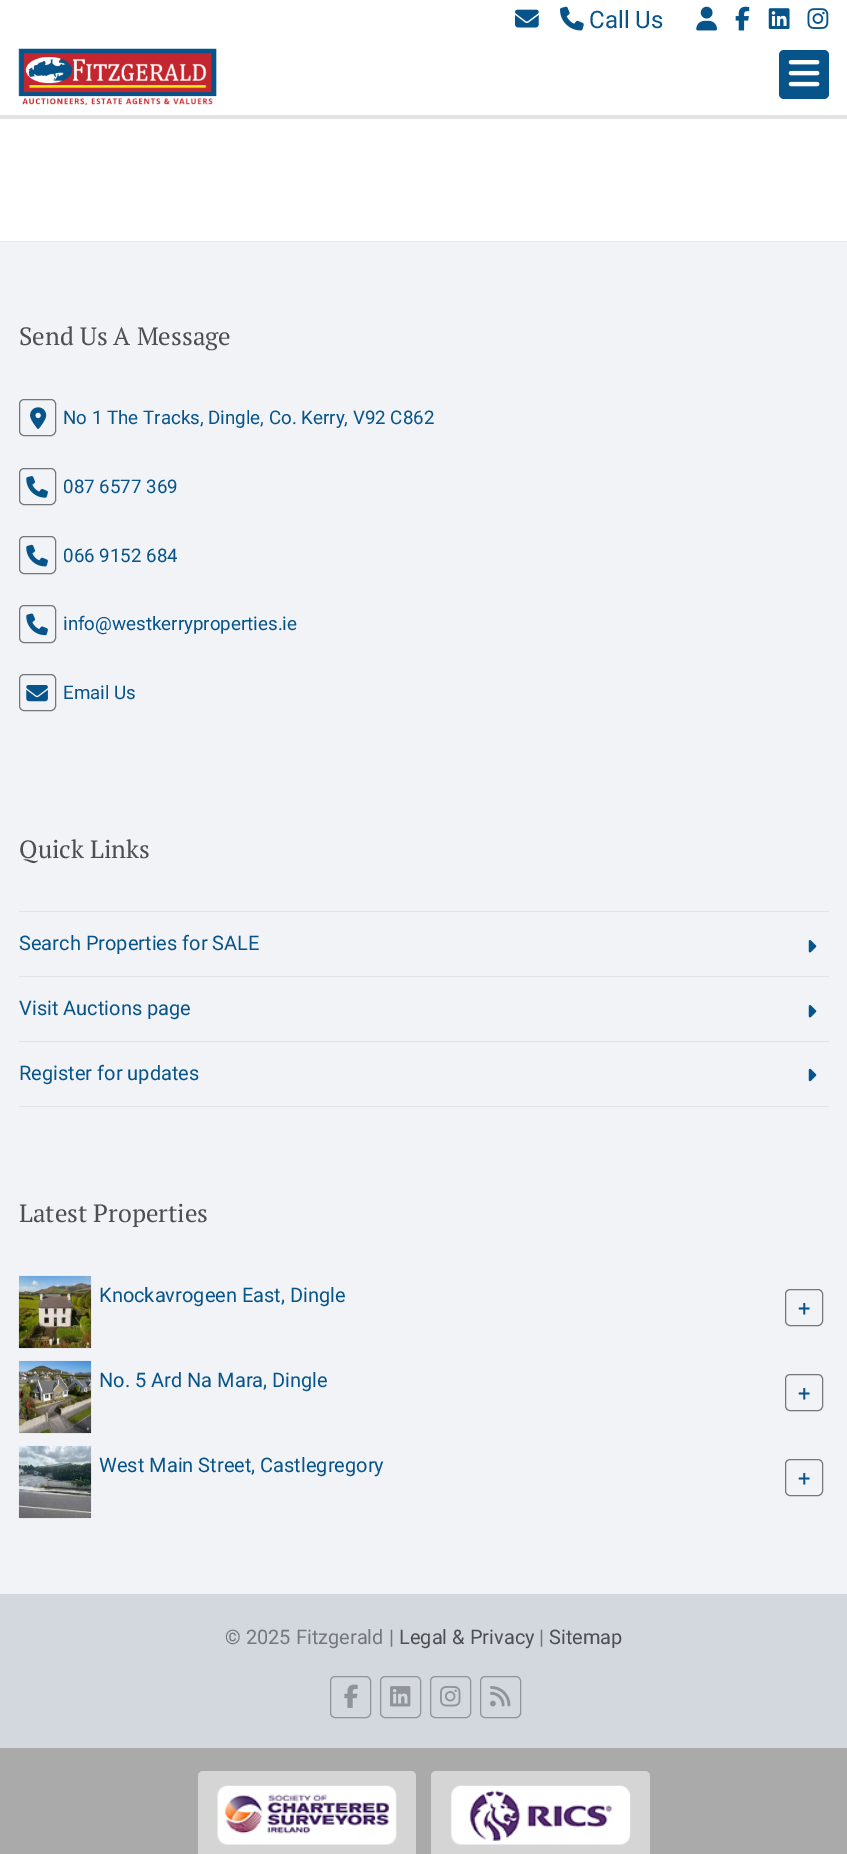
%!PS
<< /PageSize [847 1854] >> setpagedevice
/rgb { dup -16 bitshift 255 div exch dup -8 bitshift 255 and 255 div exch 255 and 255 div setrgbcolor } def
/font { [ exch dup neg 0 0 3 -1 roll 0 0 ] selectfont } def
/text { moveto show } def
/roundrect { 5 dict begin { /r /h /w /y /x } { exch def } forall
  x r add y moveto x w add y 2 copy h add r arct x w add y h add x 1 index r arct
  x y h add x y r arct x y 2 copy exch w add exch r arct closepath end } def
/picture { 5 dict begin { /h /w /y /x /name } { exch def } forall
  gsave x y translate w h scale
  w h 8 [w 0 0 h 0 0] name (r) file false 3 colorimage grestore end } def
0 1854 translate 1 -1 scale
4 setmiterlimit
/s1 { /Roboto-Regular 24 font 16#07548B rgb } def
/s2 { /PTSerif-Regular 25 font 16#4D4F52 rgb } def
/s3 { /Roboto-Regular 18.75 font 16#07548B rgb } def
/s4 { /Roboto-Regular 20 font 16#07548B rgb } def
/s5 { /Roboto-Regular 22 font 16#07548B rgb } def
/s6 { /Roboto-Regular 20 font 16#74777C rgb } def
/s7 { /Roboto-Regular 20 font 16#4D4F52 rgb } def
16#FFFFFF rgb
0 0 847 1854 rectfill
(pic1.raw) 515 9 24 19 picture
(pic2.raw) 560 6 24 25 picture
s1
(Call Us) 589 28 text
(pic3.raw) 696 6 21 25 picture
(pic4.raw) 735 6 15 25 picture
(pic5.raw) 768 8 22 21 picture
(pic6.raw) 807 8 22 21 picture
(pic7.raw) 18 48 199 58 picture
779 50 50 49 5 roundrect fill
(pic8.raw) 788 60 32 27 picture
16#E3E3E3 rgb
0 115 847 4 rectfill
16#F1F3F6 rgb
0 242 847 1352 rectfill
16#E5E7EA rgb
0 241 847 1 rectfill
s2
(Send Us A Message) 19 345 text
16#74777C rgb
19.5 399.5 36 36 4.5 roundrect stroke
(pic9.raw) 30 407 17 22 picture
s3
(No 1 The Tracks, Dingle, Co. Kerry, V92 C862) 63 424 text
16#74777C rgb
19.5 468.5 36 36 4.5 roundrect stroke
(pic10.raw) 26 476 22 22 picture
s3
(087 6577 369) 63 493 text
16#74777C rgb
19.5 536.5 36 37 4.5 roundrect stroke
(pic11.raw) 26 544 22 23 picture
s3
(066 9152 684) 63 562 text
16#74777C rgb
19.5 605.5 36 37 4.5 roundrect stroke
(pic12.raw) 26 613 22 23 picture
s3
(info@westkerryproperties.ie) 63 630 text
16#74777C rgb
19.5 674.5 36 36 4.5 roundrect stroke
(pic13.raw) 26 685 22 17 picture
s3
(Email Us) 63 699 text
s2
(Quick Links) 19 858 text
16#E2E3E7 rgb
19 911 810 1 rectfill
s4
(Search Properties for SALE) 19 950 text
(pic14.raw) 808 940 9 13 picture
16#E2E3E7 rgb
19 976 810 1 rectfill
s4
(Visit Auctions page) 19 1015 text
(pic14.raw) 808 1005 9 13 picture
16#E2E3E7 rgb
19 1041 810 1 rectfill
19 1106 810 1 rectfill
s4
(Register for updates) 19 1080 text
(pic15.raw) 808 1068 9 14 picture
s2
(Latest Properties) 19 1222 text
(pic16.raw) 18 1275 74 74 picture
s4
(Knockavrogeen East, Dingle) 99 1302 text
16#74777C rgb
785.5 1289.5 37 36 4.5 roundrect stroke
s5
(+) 798 1316 text
(pic17.raw) 18 1360 74 74 picture
s4
(No. 5 Ard Na Mara, Dingle) 99 1387 text
16#74777C rgb
785.5 1374.5 37 36 4.5 roundrect stroke
s5
(+) 798 1401 text
(pic18.raw) 18 1445 74 74 picture
s4
(West Main Street, Castlegregory) 99 1472 text
16#74777C rgb
785.5 1459.5 37 36 4.5 roundrect stroke
s5
(+) 798 1486 text
16#D3D8DE rgb
0 1594 847 154 rectfill
s6
(© 2025 Fitzgerald |) 225 1644 text
s7
(Legal & Privacy) 399 1644 text
s6
(|) 539 1644 text
s7
(Sitemap) 549 1644 text
16#909498 rgb
330.5 1676.5 40 41 4.5 roundrect stroke
(pic19.raw) 344 1684 14 24 picture
380.5 1676.5 40 41 4.5 roundrect stroke
(pic20.raw) 390 1686 21 21 picture
430.5 1676.5 40 41 4.5 roundrect stroke
(pic21.raw) 440 1686 21 21 picture
480.5 1676.5 40 41 4.5 roundrect stroke
(pic22.raw) 490 1686 21 21 picture
16#AAAAAA rgb
0 1748 847 106 rectfill
16#D5D5D5 rgb
198 1771 218 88 5 roundrect fill
(pic23.raw) 217 1785 180 60 picture
431 1771 219 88 5 roundrect fill
(pic24.raw) 451 1785 180 60 picture
showpage
